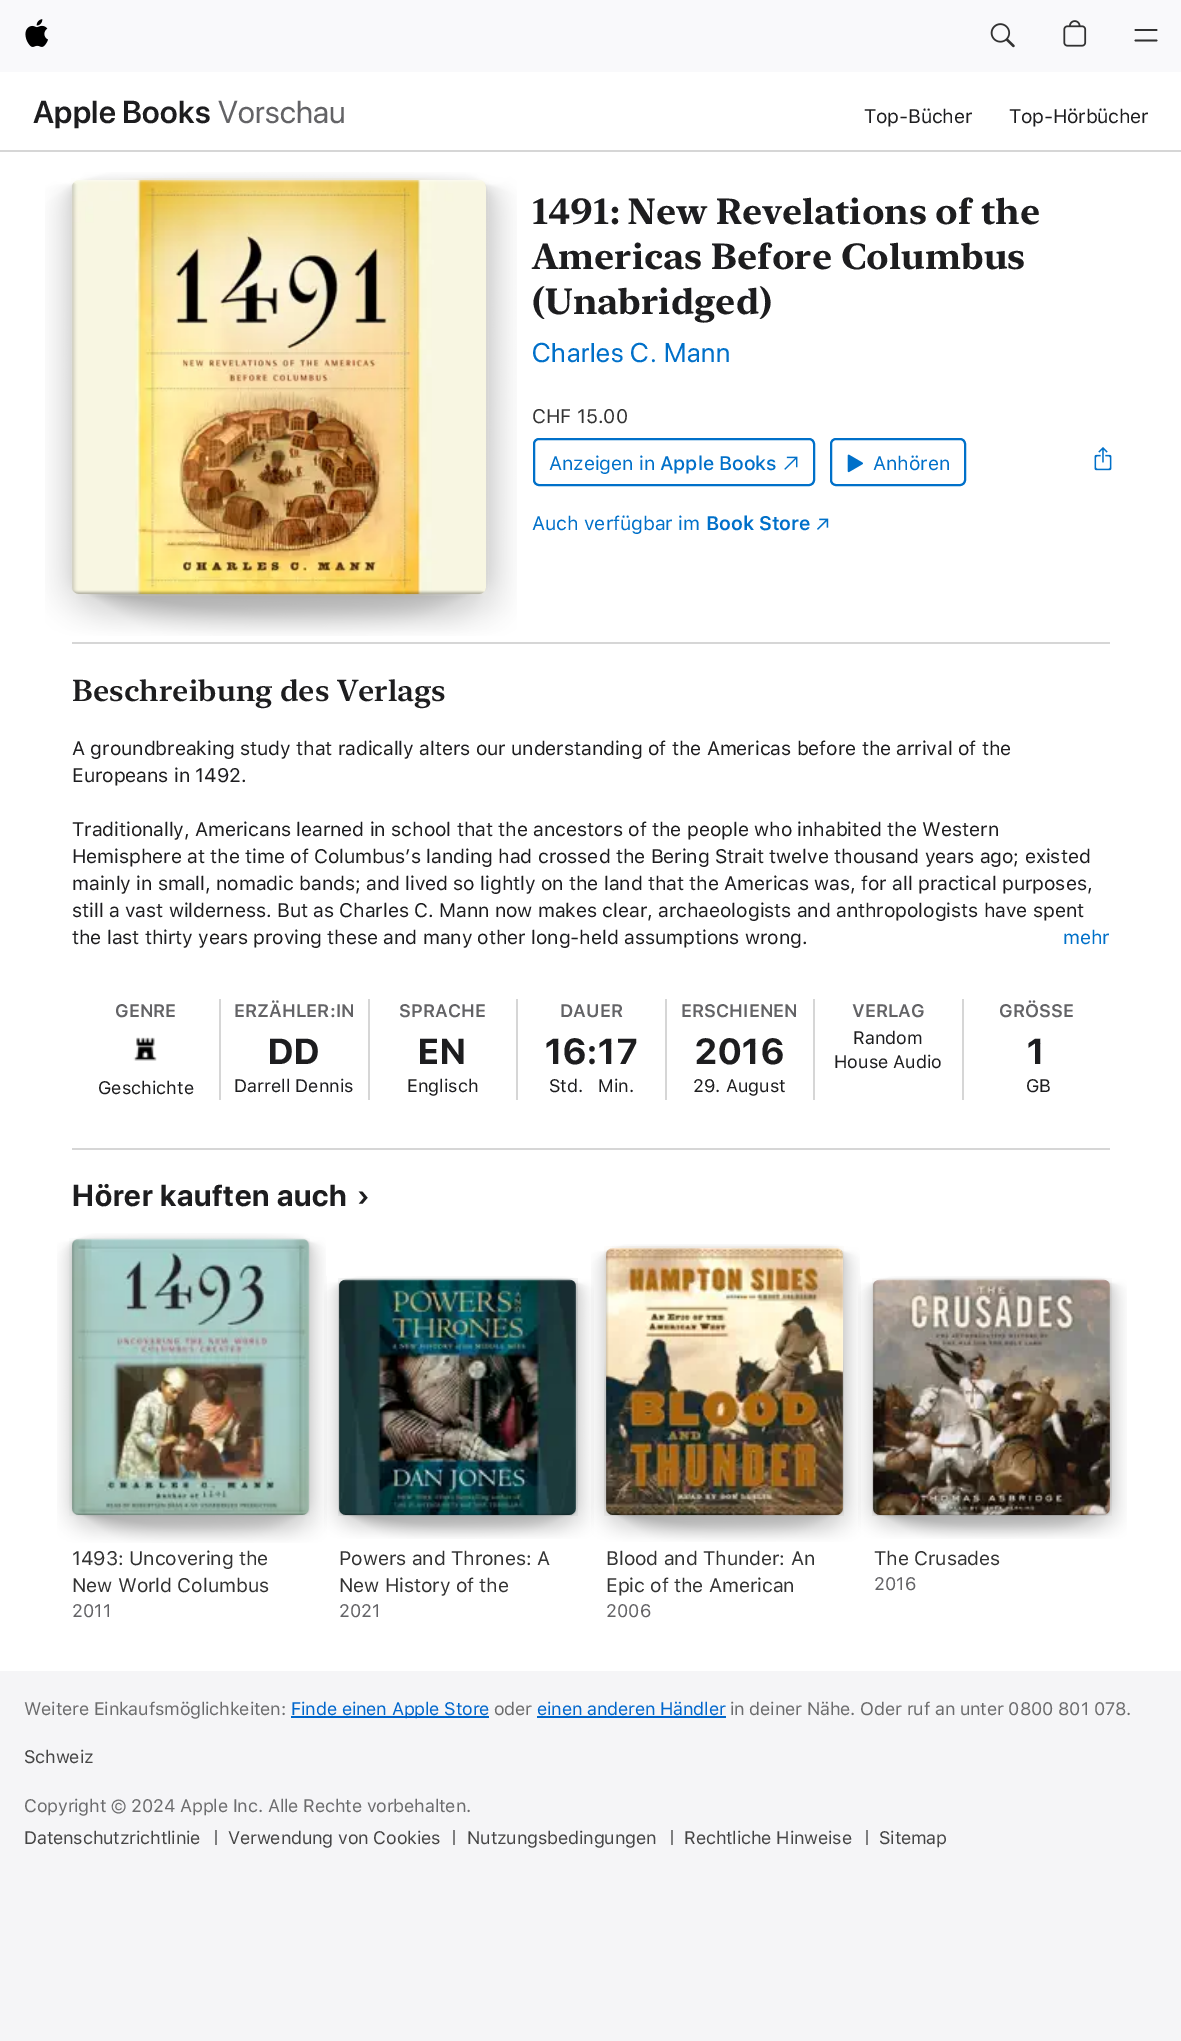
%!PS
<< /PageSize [1181 2041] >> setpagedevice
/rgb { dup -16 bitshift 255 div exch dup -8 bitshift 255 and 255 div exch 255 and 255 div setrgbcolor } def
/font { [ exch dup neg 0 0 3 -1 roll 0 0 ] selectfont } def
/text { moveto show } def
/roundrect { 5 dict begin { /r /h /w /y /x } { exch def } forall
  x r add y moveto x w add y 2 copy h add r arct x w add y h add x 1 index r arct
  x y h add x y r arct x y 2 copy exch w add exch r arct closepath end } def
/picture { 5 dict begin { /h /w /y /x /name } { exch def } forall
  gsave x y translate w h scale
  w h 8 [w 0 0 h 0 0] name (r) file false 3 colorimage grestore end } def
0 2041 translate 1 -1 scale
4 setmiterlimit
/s1 { /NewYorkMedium-Medium 36 font 16#1D1D1F rgb } def
/s2 { /NewYorkMedium-SemiBold 30 font 16#1D1D1F rgb } def
/s3 { /SFProText-SemiBold 18 font 16#636366 rgb } def
/s4 { /SFProText-Regular 18 font 16#1D1D1F rgb } def
/s5 { /SFProText-Regular 18 font 16#636366 rgb } def
16#F5F5F7 rgb
0 0 1181 2041 rectfill
16#F9F9FB rgb
0 0 1181 72 rectfill
(pic1.raw) 25 19 23 28 picture
(pic2.raw) 990 23 25 25 picture
(pic3.raw) 1063 20 24 27 picture
16#323232 rgb
1.8 setlinewidth
1 setlinecap
1 setlinejoin
1135.5 40.5 moveto 1156.5 40.5 lineto 1135.5 30 moveto 1156.5 30 lineto stroke
16#FFFFFF rgb
0 72 1181 1599 rectfill
/SFProDisplay-SemiBold 31.5 font
16#1D1D1F rgb
33 123 moveto 0.25 0 (Apple Books) ashow
/SFProDisplay-Regular 31.5 font
16#636366 rgb
218 123 moveto 0.25 0 (Vorschau) ashow
/SFProText-Regular 19.5 font
16#1D1D1F rgb
864 123 moveto -0.25 0 (Top-Bücher) ashow
1009 123 moveto -0.25 0 (Top-Hörbücher) ashow
16#D6D6D6 rgb
0 150 1181 2 rectfill
(pic4.raw) 45 172 472 464 picture
(pic5.raw) 71 178 418 418 picture
(pic6.raw) 72 180 414 414 picture
(pic7.raw) 72 180 412 414 picture
s1
(1491: New Revelations of the) 532 224 text
(Americas Before Columbus) 532 269 text
(\(Unabridged\)) 532 314 text
/SFProDisplay-Regular 27 font
16#0070C9 rgb
532 362 moveto 0.75 0 (Charles C. Mann) ashow
/SFProText-Regular 19.5 font
16#333333 rgb
532 423 moveto -0.1 0 (CHF 15.00) ashow
16#0070C9 rgb
2 setlinewidth
0 setlinecap
0 setlinejoin
534 439 280 46 5 roundrect stroke
549 470 moveto -0.1 0 (Anzeigen in) ashow
/SFProText-Medium 19.5 font
660 470 moveto -0.1 0 (Apple Books) ashow
(pic8.raw) 784 456 14 14 picture
831 439 134 46 5 roundrect stroke
(pic9.raw) 847 454 16 19 picture
/SFProText-Regular 19.5 font
873 470 moveto -0.1 0 (Anhören) ashow
(pic10.raw) 1094 447 18 24 picture
532 530 moveto -0.1 0 (Auch verfügbar im) ashow
/SFProText-SemiBold 19.5 font
706 530 moveto -0.1 0 (Book Store) ashow
(pic11.raw) 817 518 12 12 picture
16#D6D6D6 rgb
72 642 1038 2 rectfill
s2
(Beschreibung des Verlags) 72 701 text
/SFProText-Regular 19.5 font
72 755 moveto -0.1 0 (A groundbreaking study that radically alters our understanding of the Americas before the arrival of the) ashow
72 782 moveto -0.1 0 (Europeans in 1492.) ashow
72 836 moveto -0.1 0 (Traditionally, Americans learned in school that the ancestors of the people who inhabited the Western) ashow
72 863 moveto -0.1 0 (Hemisphere at the time of Columbus’s landing had crossed the Bering Strait twelve thousand years ago; existed) ashow
72 890 moveto -0.1 0 (mainly in small, nomadic bands; and lived so lightly on the land that the Americas was, for all practical purposes,) ashow
72 917 moveto -0.1 0 (still a vast wilderness. But as Charles C. Mann now makes clear, archaeologists and anthropologists have spent) ashow
72 944 moveto -0.1 0 (the last thirty years proving these and many other long-held assumptions wrong.) ashow
16#0070C9 rgb
1063 944 moveto -0.1 0 (mehr) ashow
16#D6D6D6 rgb
219 999 2 101 rectfill
s3
(GENRE) 115 1017 text
(pic12.raw) 133 1037 24 24 picture
s4
(Geschichte) 98 1094 text
16#D6D6D6 rgb
368 999 2 101 rectfill
s3
(ERZÄHLER:IN) 234 1017 text
/SFProDisplay-Bold 36 font
16#1D1D1F rgb
268 1064 moveto 1 0 (DD) ashow
s4
(Darrell Dennis) 234 1092 text
16#D6D6D6 rgb
516 999 2 101 rectfill
s3
(SPRACHE) 399 1017 text
/SFProDisplay-Bold 36 font
16#1D1D1F rgb
418 1064 moveto 1 0 (EN) ashow
s4
(Englisch) 407 1092 text
16#D6D6D6 rgb
665 999 2 101 rectfill
s3
(DAUER) 560 1017 text
/SFProDisplay-Bold 36 font
16#1D1D1F rgb
545 1064 moveto 1 0 (16:17) ashow
s4
(Std.) 549 1092 text
(Min.) 598 1092 text
16#D6D6D6 rgb
813 999 2 101 rectfill
s3
(ERSCHIENEN) 681 1017 text
/SFProDisplay-Bold 36 font
16#1D1D1F rgb
695 1064 moveto 1 0 (2016) ashow
s4
(29. August) 693 1092 text
16#D6D6D6 rgb
962 999 2 101 rectfill
s3
(VERLAG) 852 1017 text
s4
(Random) 853 1044 text
(House Audio) 834 1068 text
s3
(GRÖSSE) 999 1017 text
/SFProDisplay-Bold 36 font
16#1D1D1F rgb
1027 1064 moveto 1 0 (1) ashow
s4
(GB) 1026 1092 text
16#D6D6D6 rgb
72 1148 1038 2 rectfill
/SFProDisplay-Bold 30 font
16#1D1D1F rgb
72 1206 moveto 0.75 0 (Hörer kauften auch) ashow
357 1206 moveto 0.75 0 (›) ashow
(pic13.raw) 57 1233 269 310 picture
(pic14.raw) 69 1238 241 278 picture
(pic15.raw) 72 1239 237 276 picture
(pic16.raw) 72 1239 237 276 picture
/SFProText-Regular 19.5 font
16#333333 rgb
72 1565 moveto -0.1 0 (1493: Uncovering the) ashow
72 1592 moveto -0.1 0 (New World Columbus) ashow
s5
(2011) 72 1617 text
(pic17.raw) 324 1276 269 263 picture
(pic18.raw) 338 1278 240 238 picture
(pic19.raw) 339 1279 237 236 picture
(pic20.raw) 339 1279 237 236 picture
/SFProText-Regular 19.5 font
16#333333 rgb
339 1565 moveto -0.1 0 (Powers and Thrones: A) ashow
339 1592 moveto -0.1 0 (New History of the) ashow
s5
(2021) 339 1617 text
(pic21.raw) 591 1244 269 298 picture
(pic22.raw) 604 1246 240 270 picture
(pic23.raw) 606 1248 237 267 picture
(pic24.raw) 606 1248 237 267 picture
/SFProText-Regular 19.5 font
16#333333 rgb
606 1565 moveto -0.1 0 (Blood and Thunder: An) ashow
606 1592 moveto -0.1 0 (Epic of the American) ashow
s5
(2006) 606 1617 text
(pic25.raw) 858 1276 269 263 picture
(pic26.raw) 872 1278 240 238 picture
(pic27.raw) 873 1279 237 236 picture
(pic28.raw) 873 1279 237 236 picture
/SFProText-Regular 19.5 font
16#333333 rgb
874 1565 moveto -0.1 0 (The Crusades) ashow
s5
(2016) 874 1590 text
16#6C6C6D rgb
24 1715 moveto -0.18 0 (Weitere Einkaufsmöglichkeiten:) ashow
16#0066CC rgb
291 1716 198 2 rectfill
291 1715 moveto -0.18 0 (Finde einen Apple Store) ashow
16#6C6C6D rgb
494 1715 moveto -0.18 0 (oder) ashow
16#0066CC rgb
537 1715 moveto -0.18 0 (einen anderen Händler) ashow
537 1716 189 2 rectfill
16#6C6C6D rgb
730 1715 moveto -0.18 0 (in deiner Nähe. Oder ruf an unter 0800 801 078.) ashow
16#454545 rgb
24 1763 moveto -0.18 0 (Schweiz) ashow
16#6C6C6D rgb
24 1812 moveto -0.18 0 (Copyright © 2024 Apple Inc. Alle Rechte vorbehalten.) ashow
16#454545 rgb
24 1844 moveto -0.18 0 (Datenschutzrichtlinie) ashow
16#7F7F80 rgb
215 1830 2 15 rectfill
16#454545 rgb
228 1844 moveto -0.18 0 (Verwendung von Cookies) ashow
16#7F7F80 rgb
453 1830 2 15 rectfill
16#454545 rgb
467 1844 moveto -0.18 0 (Nutzungsbedingungen) ashow
16#7F7F80 rgb
671 1830 2 15 rectfill
16#454545 rgb
684 1844 moveto -0.18 0 (Rechtliche Hinweise) ashow
16#7F7F80 rgb
866 1830 2 15 rectfill
16#454545 rgb
879 1844 moveto -0.18 0 (Sitemap) ashow
showpage
